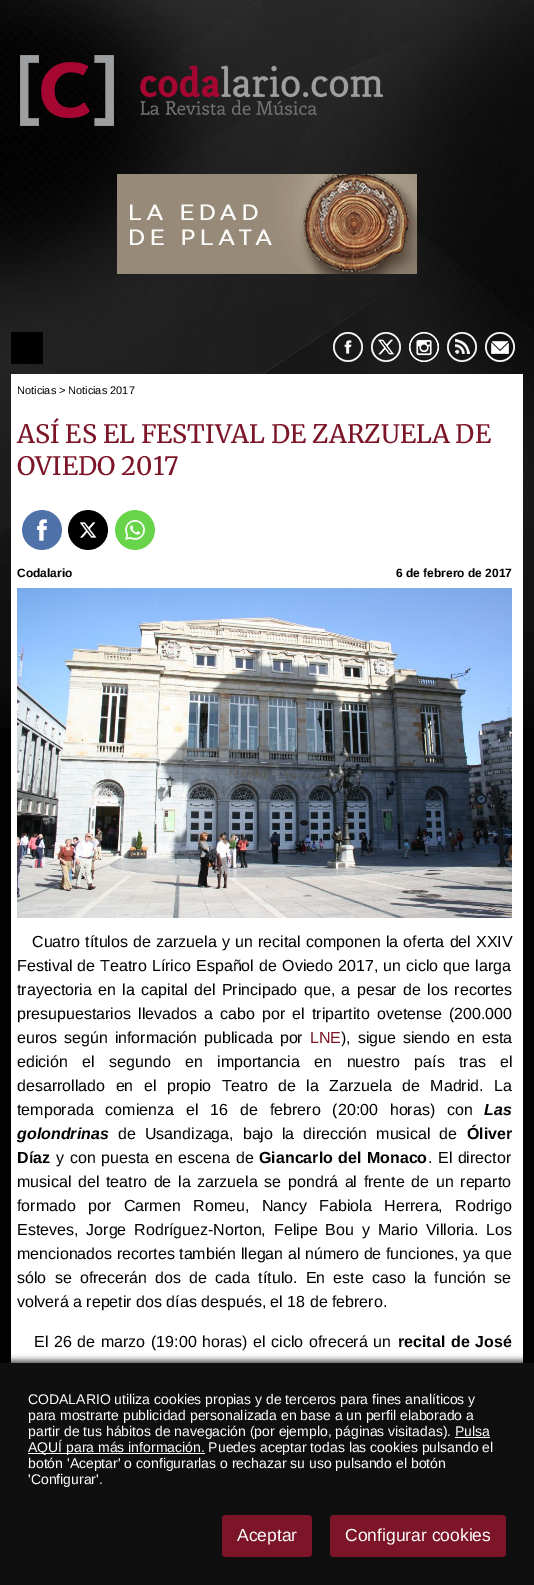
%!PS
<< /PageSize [534 1585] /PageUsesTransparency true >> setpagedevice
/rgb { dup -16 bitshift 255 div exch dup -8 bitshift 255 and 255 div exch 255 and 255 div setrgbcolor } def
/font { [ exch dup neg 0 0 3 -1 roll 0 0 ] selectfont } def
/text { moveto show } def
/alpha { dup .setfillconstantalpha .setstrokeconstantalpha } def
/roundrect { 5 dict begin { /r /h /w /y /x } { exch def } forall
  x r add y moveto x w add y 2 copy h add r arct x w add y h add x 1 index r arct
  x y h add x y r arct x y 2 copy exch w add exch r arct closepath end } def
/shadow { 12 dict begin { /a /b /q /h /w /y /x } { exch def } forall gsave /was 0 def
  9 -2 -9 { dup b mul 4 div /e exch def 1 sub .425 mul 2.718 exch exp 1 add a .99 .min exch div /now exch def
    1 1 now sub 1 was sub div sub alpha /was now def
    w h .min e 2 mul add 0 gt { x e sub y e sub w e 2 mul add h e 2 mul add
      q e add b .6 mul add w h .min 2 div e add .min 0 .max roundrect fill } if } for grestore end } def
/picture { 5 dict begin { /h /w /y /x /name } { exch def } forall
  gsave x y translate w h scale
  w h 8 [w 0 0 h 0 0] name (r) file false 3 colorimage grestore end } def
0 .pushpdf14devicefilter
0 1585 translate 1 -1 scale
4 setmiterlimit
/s1 { /LiberationSans-Regular 11 font 16#000000 rgb } def
/s2 { /Merriweather-Light 25.4 font 16#7C1528 rgb } def
/s3 { /LiberationSans-Bold 12 font 16#000000 rgb } def
/s4 { /LiberationSans-Regular 16 font 16#7C1528 rgb } def
/s5 { /LiberationSans-BoldItalic 16 font 16#000000 rgb } def
/s6 { /LiberationSans-Bold 16 font 16#000000 rgb } def
/s7 { /LiberationSans-Regular 16 font 16#000000 rgb } def
/s8 { /LiberationSans-Regular 14 font 16#FFFFFF rgb } def
/s9 { /LiberationSans-Regular 17.5 font 16#FFFFFF rgb } def
16#020202 rgb
0 0 534 1585 rectfill
(pic1.raw) 0 0 534 728 picture
(pic2.raw) 20 55 363 71 picture
(pic3.raw) 117 174 300 100 picture
16#000000 rgb
11 332 32 32 rectfill
(pic4.raw) 333 332 30 30 picture
(pic5.raw) 371 332 30 30 picture
(pic6.raw) 409 332 30 30 picture
(pic7.raw) 447 332 30 30 picture
(pic8.raw) 485 332 30 30 picture
16#FFFFFF rgb
11 374 512 989 rectfill
s1
(Noticias >) 17 394 text
(Noticias 2017) 68 394 text
s2
(ASÍ ES EL FESTIVAL DE ZARZUELA DE) 17 443 text
(OVIEDO 2017) 17 475 text
(pic9.raw) 22 510 40 40 picture
(pic10.raw) 68 510 40 40 picture
(pic11.raw) 115 510 40 40 picture
s3
(Codalario) 17 577 text
(6 de febrero de 2017) 396 577 text
(pic12.raw) 17 588 495 330 picture
/LiberationSans-Regular 16 font
32 947 moveto 0.75 0 32 (Cuatro títulos de zarzuela y un recital componen la oferta del XXIV) widthshow
17 971 moveto 0.75 0 32 (Festival de Teatro Lírico Español de Oviedo 2017, un ciclo que larga) widthshow
17 995 moveto 2 0 32 (trayectoria en la capital del Principado que, a pesar de los recortes) widthshow
17 1019 moveto 2.75 0 32 (presupuestarios llevados a cabo por el tripartito ovetense \(200.000) widthshow
17 1043 moveto 2.5 0 32 (euros según información publicada por) widthshow
s4
(LNE) 310 1043 text
16#000000 rgb
341 1043 moveto 2.5 0 32 (\), sigue siendo en esta) widthshow
17 1067 moveto 10 0 32 (edición el segundo en importancia en nuestro país tras el) widthshow
17 1091 moveto 6 0 32 (desarrollado en el propio Teatro de la Zarzuela de Madrid. La) widthshow
17 1115 moveto 7.5 0 32 (temporada comienza el 16 de febrero \(20:00 horas\) con) widthshow
s5
(Las) 484 1115 text
(golondrinas) 17 1139 text
/LiberationSans-Regular 16 font
118 1139 moveto 4.5 0 32 (de Usandizaga, bajo la dirección musical de) widthshow
s6
(Óliver) 467 1139 text
(Díaz) 17 1163 text
/LiberationSans-Regular 16 font
56 1163 moveto 1.25 0 32 (y con puesta en escena de) widthshow
/LiberationSans-Bold 16 font
259 1163 moveto 1 0 32 (Giancarlo del Monaco) widthshow
/LiberationSans-Regular 16 font
428 1163 moveto 1 0 32 (. El director) widthshow
17 1187 moveto 2.25 0 32 (musical del teatro de la zarzuela se pondrá al frente de un reparto) widthshow
17 1211 moveto 8 0 32 (formado por Carmen Romeu, Nancy Fabiola Herrera, Rodrigo) widthshow
17 1235 moveto 3.5 0 32 (Esteves, Jorge Rodríguez-Norton, Felipe Bou y Mario Villoria. Los) widthshow
17 1259 moveto 0.1 0 32 (mencionados recortes también llegan al número de funciones, ya que) widthshow
17 1283 moveto 3.75 0 32 (sólo se ofrecerán dos de cada título. En este caso la función se) widthshow
(volverá a repetir dos días después, el 18 de febrero.) 17 1307 text
34 1347 moveto 1.25 0 32 (El 26 de marzo \(19:00 horas\) el ciclo ofrecerá un) widthshow
/LiberationSans-Bold 16 font
398 1347 moveto 1.25 0 32 (recital de José) widthshow
0 1360 534 222 0 3 0.65 shadow
16#0F0F0F rgb
0 1363 534 222 rectfill
s8
(CODALARIO utiliza cookies propias y de terceros para fines analíticos y) 28 1404 text
(para mostrarte publicidad personalizada en base a un perfil elaborado a) 28 1420 text
(partir de tus hábitos de navegación \(por ejemplo, páginas visitadas\). Pulsa) 28 1436 text
28 1453 177 1 rectfill
(AQUÍ para más información. Puedes aceptar todas las cookies pulsando el) 28 1452 text
455 1437 35 1 rectfill
(botón 'Aceptar' o configurarlas o rechazar su uso pulsando el botón) 28 1468 text
('Configurar'.) 28 1484 text
16#7C1528 rgb
222 1515 90 42 4 roundrect fill
s9
(Aceptar) 237 1541 text
16#7C1528 rgb
330 1515 176 42 4 roundrect fill
s9
(Configurar cookies) 345 1541 text
.poppdf14devicefilter showpage
